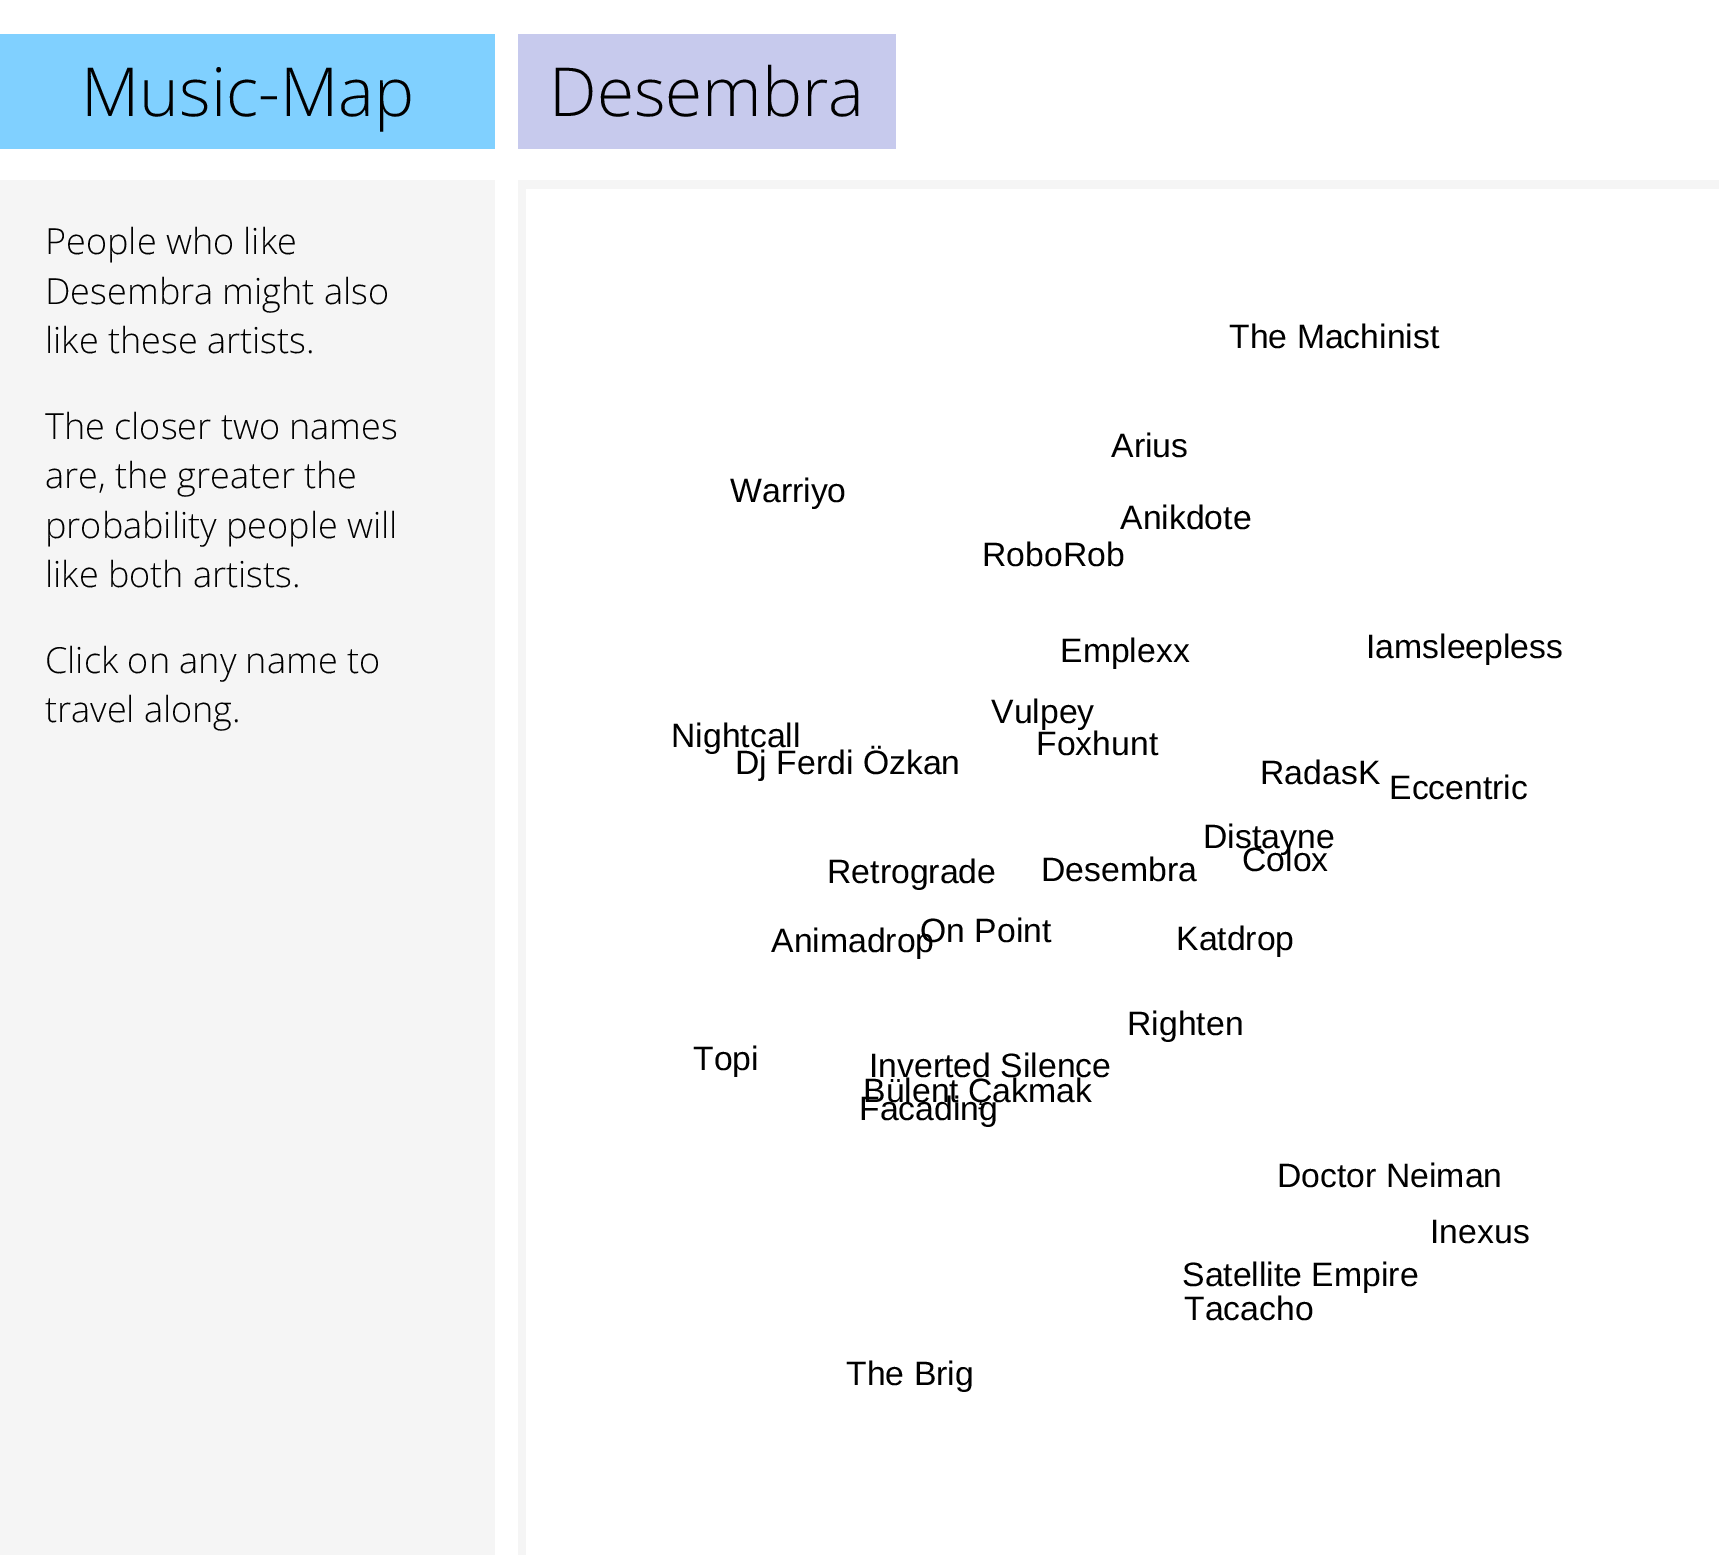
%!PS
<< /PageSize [1719 1555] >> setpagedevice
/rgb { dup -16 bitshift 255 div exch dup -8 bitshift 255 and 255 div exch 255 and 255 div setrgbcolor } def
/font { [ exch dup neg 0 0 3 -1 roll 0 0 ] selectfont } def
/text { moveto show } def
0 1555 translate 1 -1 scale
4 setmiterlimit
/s1 { /OpenSans-Light 67.5 font 16#000000 rgb } def
/s2 { /OpenSans-Light 36 font 16#000000 rgb } def
/s3 { /LiberationSans-Regular 33.75 font 16#000000 rgb } def
16#FFFFFF rgb
0 0 1719 1555 rectfill
16#80D0FF rgb
0 34 495 115 rectfill
s1
(Music-Map) 81 116 text
16#C7CAED rgb
518 34 378 115 rectfill
s1
(Desembra) 549 116 text
16#F5F5F5 rgb
0 180 495 1375 rectfill
s2
(People who like) 45 254 text
(Desembra might also) 45 304 text
(like these artists.) 45 353 text
(The closer two names) 45 439 text
(are, the greater the) 45 488 text
(probability people will) 45 538 text
(like both artists.) 45 587 text
(Click on any name to) 45 673 text
(travel along.) 45 722 text
gsave
518 180 1201 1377 rectclip
16#F5F5F5 rgb
295 -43 moveto 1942 -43 lineto 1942 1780 lineto 295 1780 lineto closepath 526 189 moveto 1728 189 lineto 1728 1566 lineto 526 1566 lineto closepath eofill
grestore
s3
(The Machinist) 1229 348 text
(Arius) 1111 457 text
(Warriyo) 730 502 text
(Anikdote) 1120 529 text
(RoboRob) 982 566 text
(Emplexx) 1060 662 text
(Iamsleepless) 1366 658 text
(Vulpey) 991 723 text
(Nightcall) 671 747 text
(Dj Ferdi Özkan) 735 774 text
(Foxhunt) 1036 755 text
(RadasK) 1260 784 text
(Eccentric) 1389 799 text
(Distayne) 1203 848 text
(Retrograde) 827 883 text
(Desembra) 1041 881 text
(Colox) 1242 871 text
(Animadrop) 771 952 text
(On Point) 920 942 text
(Katdrop) 1176 950 text
(Righten) 1127 1035 text
(Topi) 693 1070 text
(Inverted Silence) 869 1077 text
(Bülent Çakmak) 863 1102 text
(Facading) 859 1120 text
(Doctor Neiman) 1277 1187 text
(Inexus) 1430 1243 text
(Satellite Empire) 1182 1286 text
(Tacacho) 1184 1320 text
(The Brig) 846 1385 text
showpage
